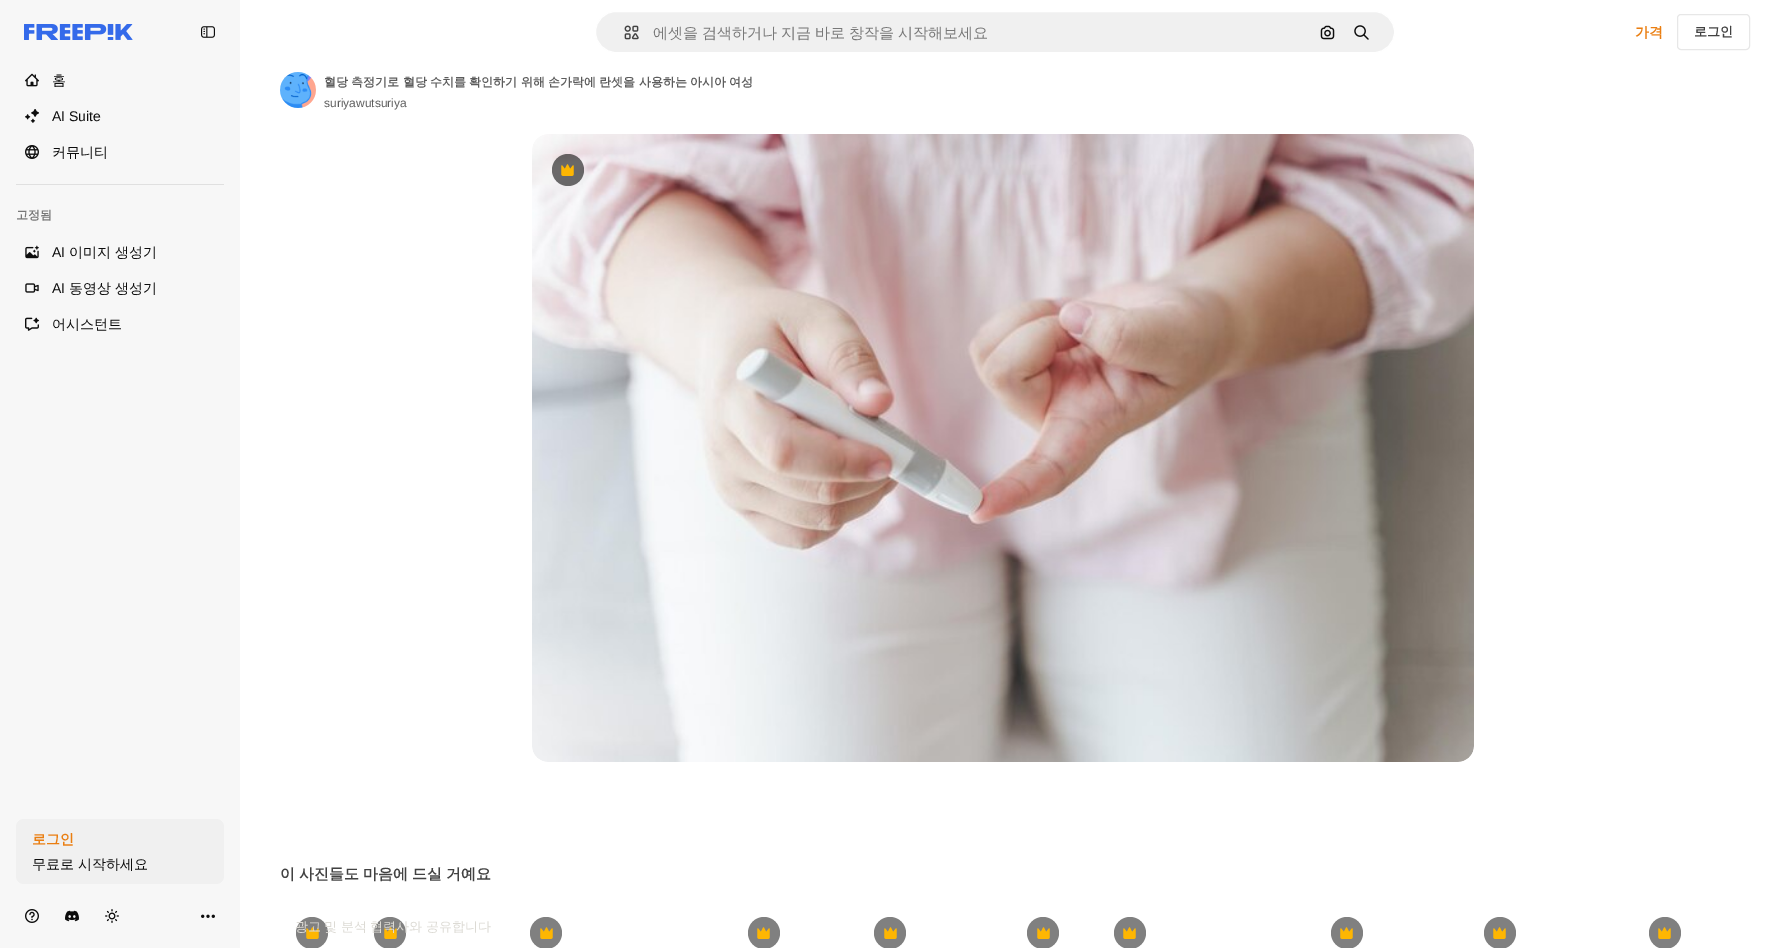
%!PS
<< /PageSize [1766 948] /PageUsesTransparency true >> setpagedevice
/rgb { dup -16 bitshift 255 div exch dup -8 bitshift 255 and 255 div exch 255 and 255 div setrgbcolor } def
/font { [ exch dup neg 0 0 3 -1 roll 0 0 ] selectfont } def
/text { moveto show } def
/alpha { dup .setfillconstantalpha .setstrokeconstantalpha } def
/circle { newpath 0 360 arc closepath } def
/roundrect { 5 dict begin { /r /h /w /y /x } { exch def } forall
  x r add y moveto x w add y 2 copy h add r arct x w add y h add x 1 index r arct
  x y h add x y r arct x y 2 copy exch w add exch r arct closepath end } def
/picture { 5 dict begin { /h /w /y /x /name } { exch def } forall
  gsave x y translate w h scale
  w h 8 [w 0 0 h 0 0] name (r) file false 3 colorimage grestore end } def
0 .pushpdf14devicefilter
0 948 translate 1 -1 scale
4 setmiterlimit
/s1 { /WenQuanYiZenHei-Medium 14 font 16#0D0D0D rgb } def
/s2 { /LiberationSans-Regular 14 font 16#0D0D0D rgb } def
/s3 { /WenQuanYiZenHei-Bold 12 font 16#787878 rgb } def
/s4 { /WenQuanYiZenHei-Bold 14 font 16#EA7E11 rgb } def
/s5 { /WenQuanYiZenHei-Bold 13 font 16#424242 rgb } def
/s6 { /LiberationSans-Regular 12 font 16#5C5C5C rgb } def
16#FFFFFF rgb
0 0 1766 948 rectfill
16#F7F7F7 rgb
0 0 240 948 rectfill
(pic1.raw) 24 24 109 16 picture
(pic2.raw) 201 26 14 12 picture
(pic3.raw) 25 73 14 14 picture
s1
(홈) 52 85 text
(pic4.raw) 25 109 14 14 picture
s2
(AI Suite) 52 121 text
(pic5.raw) 25 145 14 14 picture
s1
(커뮤니티) 52 157 text
16#E0E0E0 rgb
16 184 208 1 rectfill
s3
(고정됨) 16 219 text
(pic6.raw) 25 245 14 14 picture
s2
(AI) 52 257 text
s1
(이미지 생성기) 69 257 text
(pic7.raw) 25 283 14 10 picture
s2
(AI) 52 293 text
s1
(동영상 생성기) 69 293 text
(pic8.raw) 25 317 14 14 picture
(어시스턴트) 52 329 text
16#F0F0F0 rgb
16 819 208 65 8 roundrect fill
s4
(로그인) 32 844 text
s1
(무료로 시작하세요) 32 869 text
(pic9.raw) 25 909 14 14 picture
(pic10.raw) 65 910 14 12 picture
(pic11.raw) 105 909 14 14 picture
(pic12.raw) 201 914 14 4 picture
16#F0F0F0 rgb
595.5 11.5 799 41 20.5 roundrect gsave fill grestore
16#FFFFFF rgb
stroke
(pic13.raw) 624 25 15 15 picture
/WenQuanYiZenHei-Medium 15 font
16#787878 rgb
653 38 moveto -0.5 0 32 (에셋을 검색하거나 지금 바로 창작을 시작해보세요) widthshow
(pic14.raw) 1320 25 15 15 picture
(pic15.raw) 1354 25 15 15 picture
s4
(가격) 1635 37 text
16#E7E7E7 rgb
1677.5 14.5 72 35 3.5 roundrect stroke
s5
(로그인) 1694 36 text
(pic16.raw) 280 72 36 36 picture
/WenQuanYiZenHei-Bold 12 font
16#5C5C5C rgb
324 86 moveto -0.25 0 32 (혈당 측정기로 혈당 수치를 확인하기 위해 손가락에 란셋을 사용하는 아시아 여성) widthshow
s6
(suriyawutsuriya) 324 107 text
(pic17.raw) 532 134 942 628 picture
0.6 alpha
16#0D0D0D rgb
568 170 16 circle fill
1 alpha
(pic18.raw) 561 164 13 12 picture
/WenQuanYiZenHei-Bold 15 font
16#424242 rgb
280 879 moveto -0.5 0 32 (이 사진들도 마음에 드실 거예요) widthshow
16#808080 rgb
312 933 16 circle fill
(pic19.raw) 306 927 13 12 picture
390 933 16 circle fill
(pic19.raw) 384 927 13 12 picture
546 933 16 circle fill
(pic19.raw) 540 927 13 12 picture
764 933 16 circle fill
(pic19.raw) 757 927 13 12 picture
890 933 16 circle fill
(pic19.raw) 884 927 13 12 picture
1043 933 16 circle fill
(pic19.raw) 1037 927 13 12 picture
1130 933 16 circle fill
(pic19.raw) 1123 927 13 12 picture
1347 933 16 circle fill
(pic19.raw) 1340 927 13 12 picture
1500 933 16 circle fill
(pic19.raw) 1493 927 13 12 picture
1665 933 16 circle fill
(pic19.raw) 1658 927 13 12 picture
/WenQuanYiZenHei-Medium 13 font
16#DCDAD4 rgb
295 931 moveto -0.5 0 32 (광고 및 분석 협력사와 공유합니다) widthshow
.poppdf14devicefilter showpage
